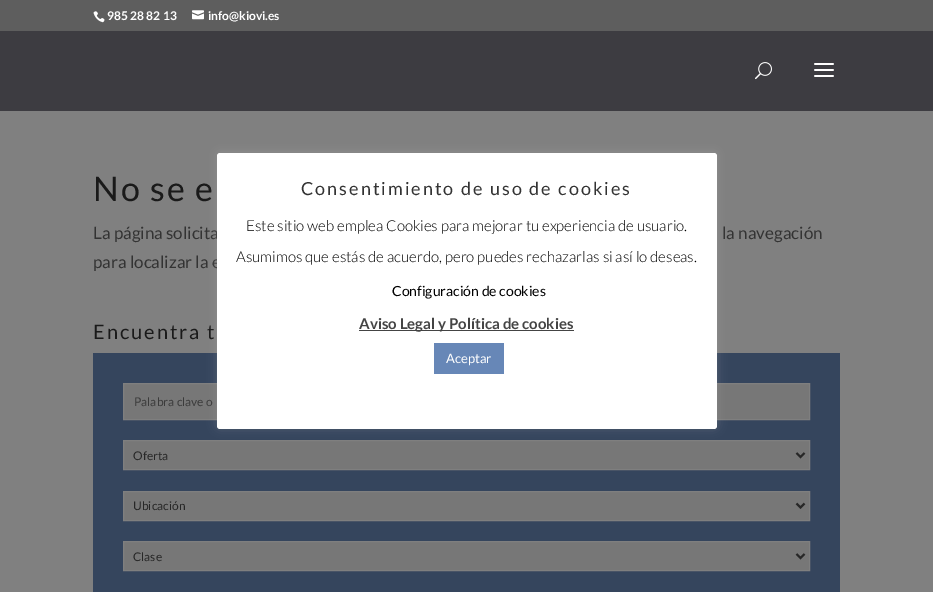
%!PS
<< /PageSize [933 592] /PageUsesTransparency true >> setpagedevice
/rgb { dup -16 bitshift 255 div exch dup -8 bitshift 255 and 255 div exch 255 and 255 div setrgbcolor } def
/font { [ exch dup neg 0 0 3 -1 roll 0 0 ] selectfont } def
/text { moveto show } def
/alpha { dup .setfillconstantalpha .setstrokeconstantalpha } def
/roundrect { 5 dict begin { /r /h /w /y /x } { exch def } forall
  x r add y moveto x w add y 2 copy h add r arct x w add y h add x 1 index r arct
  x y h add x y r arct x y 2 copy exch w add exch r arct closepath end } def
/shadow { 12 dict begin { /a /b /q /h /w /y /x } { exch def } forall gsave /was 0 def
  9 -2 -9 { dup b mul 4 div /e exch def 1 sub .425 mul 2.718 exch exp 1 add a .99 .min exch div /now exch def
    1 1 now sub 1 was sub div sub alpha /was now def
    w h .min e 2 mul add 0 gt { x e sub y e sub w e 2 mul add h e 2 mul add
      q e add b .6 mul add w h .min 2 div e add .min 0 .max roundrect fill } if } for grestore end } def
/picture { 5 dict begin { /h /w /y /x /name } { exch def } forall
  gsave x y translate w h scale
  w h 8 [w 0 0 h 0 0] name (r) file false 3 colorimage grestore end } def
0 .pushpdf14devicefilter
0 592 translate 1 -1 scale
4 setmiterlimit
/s1 { /Lato-Bold 12 font 16#FFFFFF rgb } def
/s2 { /Lato-Regular 17 font 16#333333 rgb } def
/s3 { /Lato-Regular 12 font 16#3B3B3B rgb } def
/s4 { /Lato-Regular 12 font 16#272727 rgb } def
/s5 { /Lato-Light 15 font 16#000000 rgb } def
/s6 { /Lato-Regular 14 font 16#000000 rgb } def
/s7 { /Lato-Bold 15 font 16#444444 rgb } def
/s8 { /Lato-Regular 13 font 16#FFFFFF rgb } def
16#808080 rgb
0 0 933 592 rectfill
16#5E5E5E rgb
0 0 933 31 rectfill
(pic1.raw) 93 11 12 12 picture
s1
(985 28 82 13) 107 20 text
(pic2.raw) 192 10 12 10 picture
(info@kiovi.es) 208 20 text
16#3D3C41 rgb
0 31 933 80 rectfill
(pic3.raw) 755 62 17 18 picture
(pic4.raw) 814 63 20 14 picture
/Lato-Regular 34 font
16#1A1A1A rgb
93 201 moveto 2 0 (No se e) ashow
s2
(La página solicita) 93 239 text
(la navegación) 722 239 text
(para localizar la e) 93 268 text
/Lato-Regular 20 font
16#1A1A1A rgb
93 339 moveto 2 0 (Encuentra t) ashow
16#35455D rgb
93 353 747 239 rectfill
16#777777 rgb
123.5 383.5 moveto 809.5 383.5 lineto 809.5 419.5 lineto 123.5 419.5 lineto closepath gsave fill grestore
16#7F7F7F rgb
stroke
s3
(Palabra clave o) 134 406 text
16#777777 rgb
123.5 440.5 moveto 809.5 440.5 lineto 809.5 469.5 lineto 123.5 469.5 lineto closepath gsave fill grestore
16#7F7F7F rgb
stroke
16#272727 rgb
2 setlinewidth
796.5 453 moveto 800.5 457 lineto 804.5 453 lineto stroke
(Oferta) 133 460 text
16#777777 rgb
123.5 491.5 moveto 809.5 491.5 lineto 809.5 520.5 lineto 123.5 520.5 lineto closepath gsave fill grestore
16#7F7F7F rgb
1 setlinewidth
stroke
16#272727 rgb
2 setlinewidth
796.5 503.5 moveto 800.5 507.5 lineto 804.5 503.5 lineto stroke
(Ubicación) 133 510 text
16#777777 rgb
123.5 541.5 moveto 809.5 541.5 lineto 809.5 570.5 lineto 123.5 570.5 lineto closepath gsave fill grestore
16#7F7F7F rgb
1 setlinewidth
stroke
16#272727 rgb
2 setlinewidth
796.5 554 moveto 800.5 558 lineto 804.5 554 lineto stroke
(Clase) 133 561 text
16#ACABAB rgb
217 152 500 276 3 5 0.3 shadow
16#FFFFFF rgb
217 153 500 276 3 roundrect fill
/Lato-Regular 18 font
16#333333 rgb
301 195 moveto 2 0 (Consentimiento de uso de cookies) ashow
s5
(Este sitio web emplea Cookies para mejorar tu experiencia de usuario.) 246 231 text
(Asumimos que estás de acuerdo, pero puedes rechazarlas si así lo deseas.) 236 262 text
s6
(Configuración de cookies) 392 296 text
16#444444 rgb
359 330 215 1 rectfill
s7
(Aviso Legal y Política de cookies) 359 329 text
16#6787B7 rgb
434 343 70 31 rectfill
s8
(Aceptar) 446 363 text
.poppdf14devicefilter showpage
